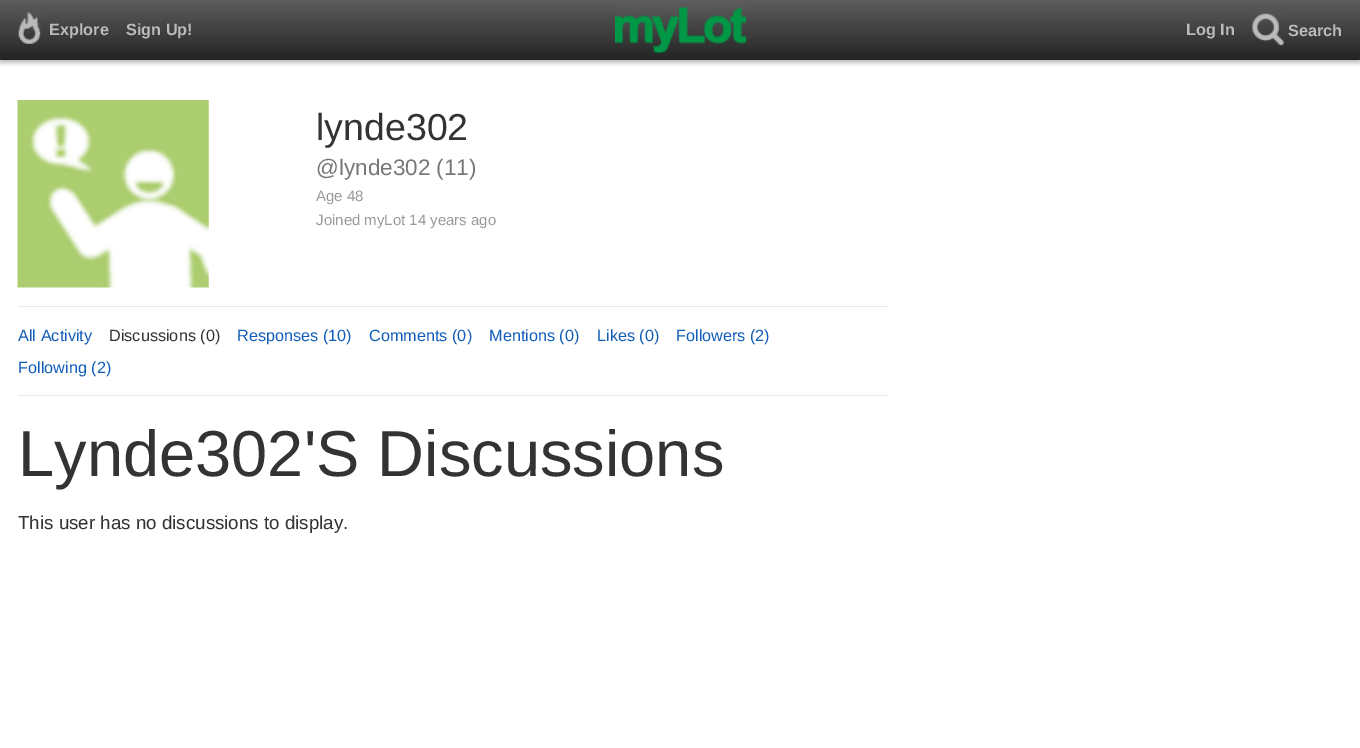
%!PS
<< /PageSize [1360 748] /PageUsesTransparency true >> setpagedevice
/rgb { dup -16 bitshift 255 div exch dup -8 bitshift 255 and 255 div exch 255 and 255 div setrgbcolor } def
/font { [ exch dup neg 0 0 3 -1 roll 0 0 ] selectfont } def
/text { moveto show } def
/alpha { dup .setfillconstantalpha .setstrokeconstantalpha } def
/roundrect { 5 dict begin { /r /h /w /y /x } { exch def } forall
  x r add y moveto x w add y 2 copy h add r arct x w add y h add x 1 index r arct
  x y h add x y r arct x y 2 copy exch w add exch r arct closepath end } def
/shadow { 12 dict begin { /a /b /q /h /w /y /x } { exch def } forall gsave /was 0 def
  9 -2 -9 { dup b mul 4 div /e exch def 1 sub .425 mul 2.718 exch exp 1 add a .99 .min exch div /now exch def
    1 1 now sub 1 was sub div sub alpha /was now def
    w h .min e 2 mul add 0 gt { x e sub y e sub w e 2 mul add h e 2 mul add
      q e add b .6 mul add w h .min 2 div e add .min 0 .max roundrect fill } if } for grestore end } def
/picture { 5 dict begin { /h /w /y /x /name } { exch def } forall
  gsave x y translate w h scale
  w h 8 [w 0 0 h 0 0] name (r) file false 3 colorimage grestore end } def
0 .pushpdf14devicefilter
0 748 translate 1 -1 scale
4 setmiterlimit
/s1 { /LiberationSans-Bold 16.25 font 16#BBBBBB rgb } def
/s2 { /LiberationSans-Regular 37.5 font 16#333333 rgb } def
/s3 { /LiberationSans-Regular 22.5 font 16#777777 rgb } def
/s4 { /LiberationSans-Regular 15 font 16#999999 rgb } def
/s5 { /LiberationSans-Regular 16.25 font 16#105CB6 rgb } def
/s6 { /LiberationSans-Regular 16.25 font 16#333333 rgb } def
/s7 { /LiberationSans-Regular 65 font 16#333333 rgb } def
/s8 { /LiberationSans-Regular 18.75 font 16#333333 rgb } def
16#FFFFFF rgb
0 0 1360 748 rectfill
16#000000 rgb
0 3 1360 60 0 2 0.25 shadow
gsave 0 0 moveto 1360 0 lineto 1360 60 lineto 0 60 lineto closepath clip newpath
<< /ShadingType 2 /ColorSpace /DeviceRGB /Coords [680 0 680 60] /Extend [true true] /Function << /FunctionType 2 /Domain [0 1] /C0 [0.369 0.369 0.369] /C1 [0.137 0.137 0.137] /N 1 >> >> shfill grestore
(pic1.raw) 18 12 23 32 picture
s1
(Explore) 49 35 text
(Sign Up!) 126 35 text
(pic2.raw) 615 7 132 46 picture
(Log In) 1186 35 text
(pic3.raw) 1252 13 32 33 picture
(Search) 1288 36 text
(pic4.raw) 17 100 192 188 picture
s2
(lynde302) 316 140 text
s3
(@lynde302 \(11\)) 316 175 text
s4
(Age 48) 316 201 text
(Joined myLot 14 years ago) 316 225 text
16#E8E8E8 rgb
18 306 870 1 rectfill
18 395 870 1 rectfill
s5
(All Activity) 18 341 text
s6
(Discussions \(0\)) 109 341 text
s5
(Responses \(10\)) 237 341 text
(Comments \(0\)) 369 341 text
(Mentions \(0\)) 489 341 text
(Likes \(0\)) 597 341 text
(Followers \(2\)) 676 341 text
(Following \(2\)) 18 373 text
s7
(Lynde302'S Discussions) 18 476 text
s8
(This user has no discussions to display.) 18 529 text
.poppdf14devicefilter showpage
